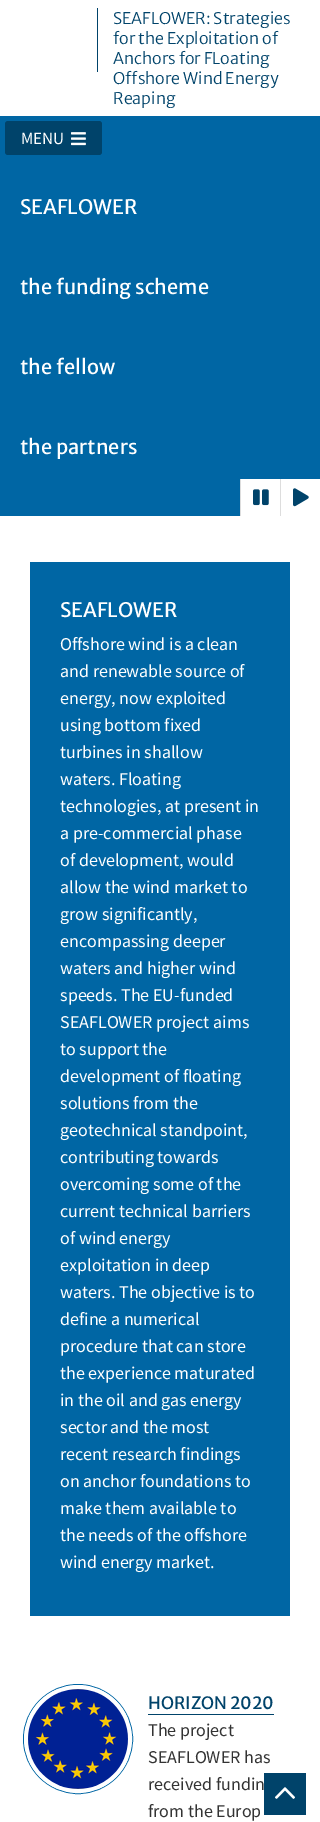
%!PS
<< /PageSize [320 1822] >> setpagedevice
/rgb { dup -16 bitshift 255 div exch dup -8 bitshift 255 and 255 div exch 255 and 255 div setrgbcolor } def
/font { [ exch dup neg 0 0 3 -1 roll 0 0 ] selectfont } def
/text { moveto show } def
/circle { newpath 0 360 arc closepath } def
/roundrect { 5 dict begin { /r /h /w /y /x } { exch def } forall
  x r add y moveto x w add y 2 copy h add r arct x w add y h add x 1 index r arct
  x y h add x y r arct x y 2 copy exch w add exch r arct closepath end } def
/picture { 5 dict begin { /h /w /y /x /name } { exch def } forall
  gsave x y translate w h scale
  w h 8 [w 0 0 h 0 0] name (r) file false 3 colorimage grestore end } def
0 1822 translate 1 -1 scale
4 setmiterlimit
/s1 { /MerriweatherSans-Light 16 font 16#00436A rgb } def
/s2 { /SourceSansPro-Regular 17 font 16#FFFFFF rgb } def
/s3 { /MerriweatherSans-Regular 20 font 16#FFFFFF rgb } def
/s4 { /SourceSansPro-Regular 18 font 16#FFFFFF rgb } def
/s5 { /MerriweatherSans-Regular 17 font 16#00436A rgb } def
/s6 { /SourceSansPro-Regular 18 font 16#333333 rgb } def
16#FFFFFF rgb
0 0 320 1822 rectfill
16#00436A rgb
97 8 1 64 rectfill
s1
(SEAFLOWER: Strategies) 113 24 text
(for the Exploitation of) 113 44 text
(Anchors for FLoating) 113 64 text
(Offshore Wind Energy) 113 84 text
(Reaping) 113 104 text
16#0066A4 rgb
0 116 320 364 rectfill
16#00436A rgb
5 121 97 34 3 roundrect fill
s2
(MENU) 21 144 text
(pic1.raw) 71 132 15 14 picture
s3
(SEAFLOWER) 20 214 text
(the funding scheme) 20 294 text
(the fellow) 20 374 text
(the partners) 20 454 text
16#0066A4 rgb
0 480 240 36 rectfill
16#FFFFFF rgb
241 479 39 1 rectfill
16#DDDDDD rgb
240 479 1 37 rectfill
(pic2.raw) 253 489 16 17 picture
16#FFFFFF rgb
281 479 39 1 rectfill
16#DDDDDD rgb
280 479 1 37 rectfill
(pic3.raw) 293 488 16 19 picture
16#0066A4 rgb
30 562 260 1054 rectfill
s3
(SEAFLOWER) 60 617 text
s4
(Offshore wind is a clean) 60 650 text
(and renewable source of) 60 677 text
(energy, now exploited) 60 704 text
(using bottom fixed) 60 731 text
(turbines in shallow) 60 758 text
(waters. Floating) 60 785 text
(technologies, at present in) 60 812 text
(a pre-commercial phase) 60 839 text
(of development, would) 60 866 text
(allow the wind market to) 60 893 text
(grow significantly,) 60 920 text
(encompassing deeper) 60 947 text
(waters and higher wind) 60 974 text
(speeds. The EU-funded) 60 1001 text
(SEAFLOWER project aims) 60 1028 text
(to support the) 60 1055 text
(development of floating) 60 1082 text
(solutions from the) 60 1109 text
(geotechnical standpoint,) 60 1136 text
(contributing towards) 60 1163 text
(overcoming some of the) 60 1190 text
(current technical barriers) 60 1217 text
(of wind energy) 60 1244 text
(exploitation in deep) 60 1271 text
(waters. The objective is to) 60 1298 text
(define a numerical) 60 1325 text
(procedure that can store) 60 1352 text
(the experience maturated) 60 1379 text
(in the oil and gas energy) 60 1406 text
(sector and the most) 60 1433 text
(recent research findings) 60 1460 text
(on anchor foundations to) 60 1487 text
(make them available to) 60 1514 text
(the needs of the offshore) 60 1541 text
(wind energy market.) 60 1568 text
16#0066A4 rgb
78 1739 54.5 circle stroke
16#FFFFFF rgb
4 setlinewidth
78 1739 52 circle stroke
(pic4.raw) 28 1689 100 100 picture
s5
(HORIZON 2020) 148 1709 text
148 1714 126 1 rectfill
s6
(The project) 148 1736 text
(SEAFLOWER has) 148 1763 text
(received fundin) 148 1790 text
(from the Europ) 148 1817 text
16#00436A rgb
264 1773 42 42 rectfill
(pic5.raw) 275 1787 20 12 picture
showpage
